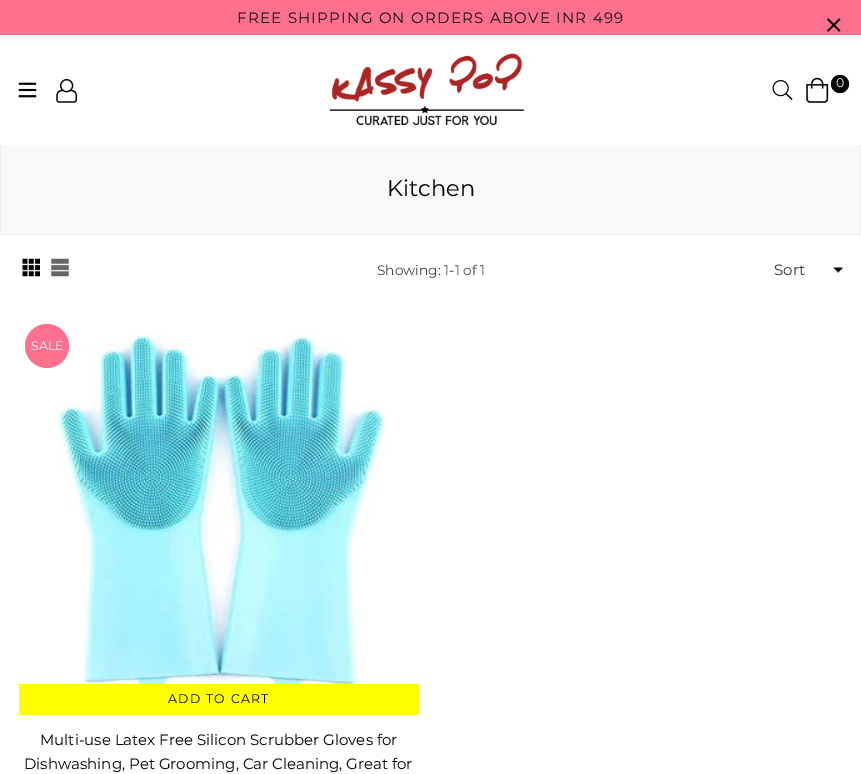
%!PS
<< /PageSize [861 774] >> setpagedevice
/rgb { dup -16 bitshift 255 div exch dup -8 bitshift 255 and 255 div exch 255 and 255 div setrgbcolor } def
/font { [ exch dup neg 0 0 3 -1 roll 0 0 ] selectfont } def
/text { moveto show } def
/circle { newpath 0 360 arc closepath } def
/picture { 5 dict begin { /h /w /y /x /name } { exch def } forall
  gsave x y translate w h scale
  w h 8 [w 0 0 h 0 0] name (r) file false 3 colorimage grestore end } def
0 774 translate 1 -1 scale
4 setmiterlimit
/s1 { /Montserrat-Regular 12.5 font 16#FFFFFF rgb } def
/s2 { /Montserrat-Regular 22.5 font 16#000000 rgb } def
/s3 { /Montserrat-Regular 13.75 font 16#444444 rgb } def
/s4 { /Montserrat-Regular 15 font 16#333333 rgb } def
/s5 { /Montserrat-Regular 15 font 16#000000 rgb } def
16#FFFFFF rgb
0 0 861 774 rectfill
16#FF708E rgb
0 0 861 35 rectfill
/Montserrat-Regular 15 font
16#0E0F0E rgb
237 23 moveto 1.25 0 (FREE SHIPPING ON ORDERS ABOVE INR 499) ashow
(pic1.raw) 827 18 14 14 picture
(pic2.raw) 18 82 19 16 picture
(pic3.raw) 56 79 22 24 picture
(pic4.raw) 330 53 194 72 picture
(pic5.raw) 772 80 21 20 picture
(pic6.raw) 806 77 23 26 picture
16#000000 rgb
840 84 9 circle fill
s1
(0) 836 87 text
16#F9F9F9 rgb
1 145 859 89 rectfill
16#EEEEEE rgb
860 145 1 90 rectfill
0 234 861 1 rectfill
0 145 1 90 rectfill
s2
(Kitchen) 387 196 text
(pic7.raw) 22 258 18 19 picture
(pic8.raw) 51 258 18 19 picture
s3
(Showing: 1-1 of 1) 377 275 text
(pic9.raw) 833 267 10 6 picture
s4
(Sort) 774 275 text
(pic10.raw) 57 330 332 354 picture
16#FF708E rgb
47 346 22 circle fill
s1
(SALE) 31 350 text
16#FFFF00 rgb
19 684 400 31 rectfill
16#000000 rgb
168 703 moveto 1.25 0 (ADD TO CART) ashow
s5
(Multi-use Latex Free Silicon Scrubber Gloves for) 40 745 text
(Dishwashing, Pet Grooming, Car Cleaning, Great for) 24 769 text
showpage
